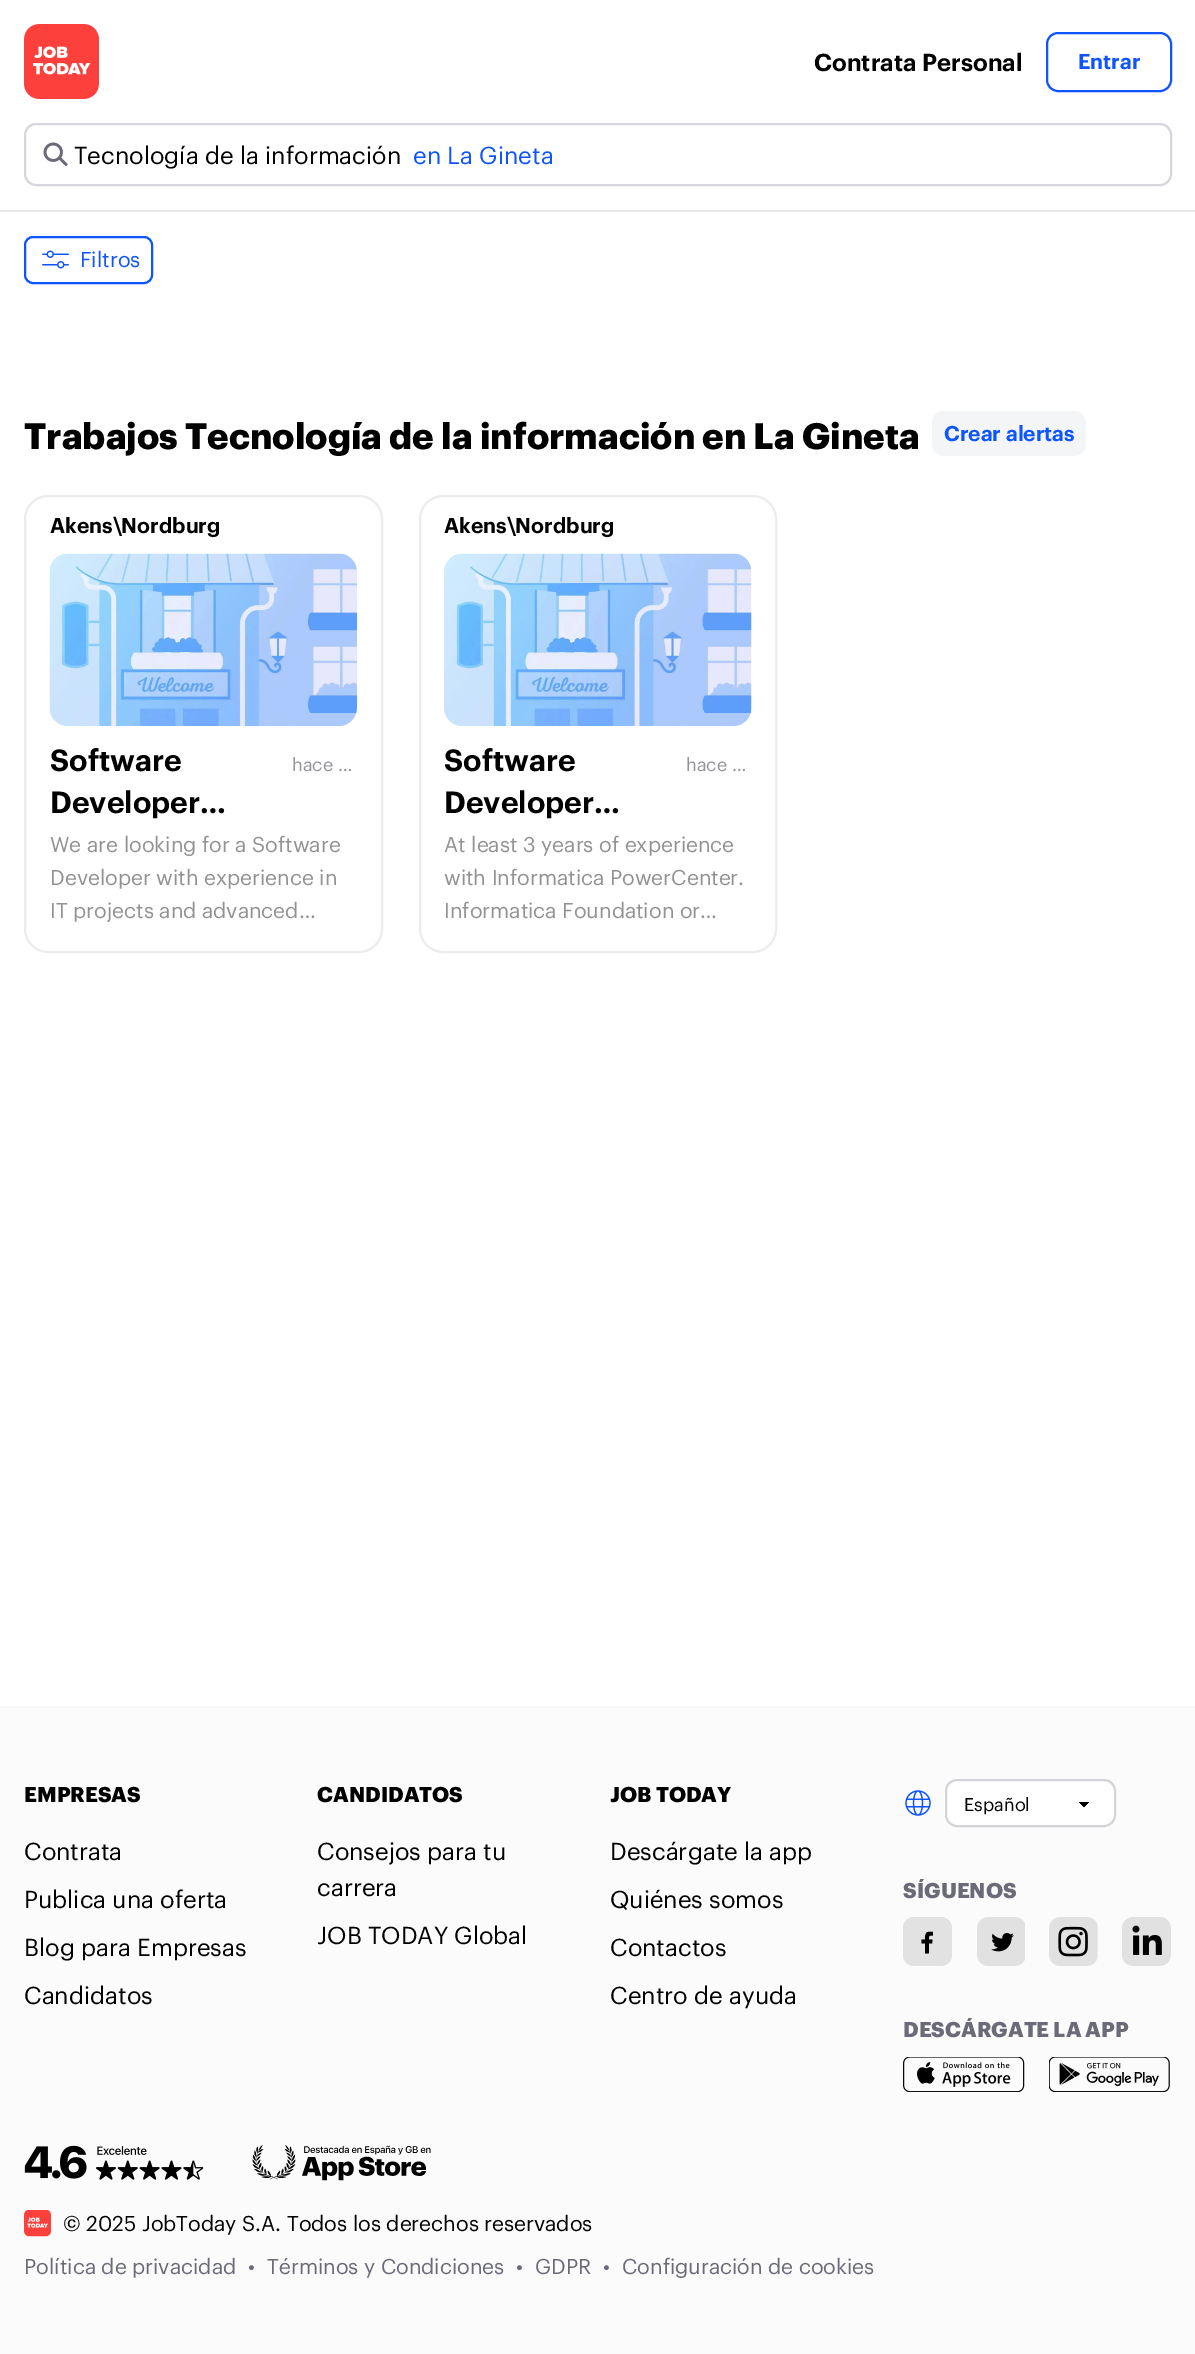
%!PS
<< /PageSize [1195 2354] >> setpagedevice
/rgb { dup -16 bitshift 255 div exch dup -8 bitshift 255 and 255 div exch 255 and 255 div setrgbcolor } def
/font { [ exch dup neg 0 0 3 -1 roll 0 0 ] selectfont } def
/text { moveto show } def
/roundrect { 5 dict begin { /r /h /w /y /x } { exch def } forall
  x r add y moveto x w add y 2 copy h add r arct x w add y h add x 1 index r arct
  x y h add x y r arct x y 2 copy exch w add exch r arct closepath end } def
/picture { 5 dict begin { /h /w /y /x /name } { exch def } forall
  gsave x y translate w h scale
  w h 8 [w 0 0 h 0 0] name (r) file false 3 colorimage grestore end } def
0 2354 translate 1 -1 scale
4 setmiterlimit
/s1 { /Graphik-SemiBold 24 font 16#000000 rgb } def
/s2 { /Graphik-SemiBold 21 font 16#0E54FF rgb } def
/s3 { /Graphik-Regular 24 font 16#000000 rgb } def
/s4 { /Graphik-Regular 24 font 16#0E54FF rgb } def
/s5 { /Graphik-Regular 21 font 16#0E54FF rgb } def
/s6 { /Graphik-Bold 36 font 16#000000 rgb } def
/s7 { /Graphik-SemiBold 21 font 16#000000 rgb } def
/s8 { /Graphik-SemiBold 30 font 16#000000 rgb } def
/s9 { /Graphik-Regular 18 font 16#93939A rgb } def
/s10 { /Graphik-Regular 21 font 16#929292 rgb } def
/s11 { /Graphik-Bold 21 font 16#000000 rgb } def
/s12 { /Graphik-Regular 18 font 16#000000 rgb } def
/s13 { /Graphik-Bold 21 font 16#6A6A78 rgb } def
/s14 { /Graphik-Regular 21 font 16#000000 rgb } def
/s15 { /Graphik-Regular 21 font 16#6A6A78 rgb } def
16#FFFFFF rgb
0 0 1195 2354 rectfill
16#E5E7EB rgb
0 210 1195 2 rectfill
(pic1.raw) 24 24 75 75 picture
s1
(Contrata Personal) 814 71 text
16#0E54FF rgb
2 setlinewidth
1047 33 124 58 11 roundrect stroke
s2
(Entrar) 1078 69 text
16#D6D6DC rgb
25 124 1146 61 11 roundrect stroke
(pic2.raw) 43 142 25 25 picture
s3
(Tecnología de la información) 74 164 text
s4
(en La Gineta) 413 164 text
25 237 127 46 8 roundrect stroke
(pic3.raw) 42 250 27 19 picture
s5
(Filtros) 80 267 text
s6
(Trabajos Tecnología de la información en La Gineta) 24 449 text
16#F4F5F6 rgb
932 411 154 45 12 roundrect fill
s2
(Crear alertas) 944 441 text
16#ECECEC rgb
25 496 357 456 23 roundrect stroke
s7
(Akens\\Nordburg) 50 533 text
(pic4.raw) 49 553 308 173 picture
s8
(Software) 50 771 text
(Developer…) 50 813 text
s9
(hace …) 292 771 text
s10
(We are looking for a Software) 50 852 text
(Developer with experience in) 50 885 text
(IT projects and advanced…) 50 918 text
16#ECECEC rgb
420 496 356 456 23 roundrect stroke
s7
(Akens\\Nordburg) 444 533 text
(pic5.raw) 444 553 308 173 picture
s8
(Software) 444 771 text
(Developer…) 444 813 text
s9
(hace …) 686 771 text
s10
(At least 3 years of experience) 444 852 text
(with Informatica PowerCenter.) 444 885 text
(Informatica Foundation or…) 444 918 text
16#FBFBFB rgb
0 1708 1195 646 rectfill
16#F3F4F6 rgb
0 1706 1195 2 rectfill
s11
(EMPRESAS) 24 1802 text
s3
(Contrata) 24 1860 text
(Publica una oferta) 24 1908 text
(Blog para Empresas) 24 1956 text
(Candidatos) 24 2004 text
s11
(CANDIDATOS) 317 1802 text
s3
(Consejos para tu) 317 1860 text
(carrera) 317 1896 text
(JOB TODAY Global) 317 1944 text
s11
(JOB TODAY) 610 1802 text
s3
(Descárgate la app) 610 1860 text
(Quiénes somos) 610 1908 text
(Contactos) 610 1956 text
(Centro de ayuda) 610 2004 text
(pic6.raw) 905 1790 26 26 picture
16#FFFFFF rgb
945 1779 171 48 12 roundrect fill
gsave 1085 1802 moveto 1091 1802 lineto 1091 1806 lineto 1085 1806 lineto closepath clip newpath
<< /ShadingType 2 /ColorSpace /DeviceRGB /Coords [1084 1802 1090 1808] /Extend [true true] /Function << /FunctionType 3 /Domain [0 1] /Functions [<< /FunctionType 2 /Domain [0 1] /C0 [0 0 0] /C1 [0 0 0] /N 1 >> << /FunctionType 2 /Domain [0 1] /C0 [1 1 1] /C1 [1 1 1] /N 1 >>] /Bounds [0.5] /Encode [0 1 0 1] >> >> shfill grestore
gsave 1079 1802 moveto 1085 1802 lineto 1085 1807 lineto 1079 1807 lineto closepath clip newpath
<< /ShadingType 2 /ColorSpace /DeviceRGB /Coords [1079 1808 1085 1802] /Extend [true true] /Function << /FunctionType 3 /Domain [0 1] /Functions [<< /FunctionType 2 /Domain [0 1] /C0 [1 1 1] /C1 [1 1 1] /N 1 >> << /FunctionType 2 /Domain [0 1] /C0 [0 0 0] /C1 [0 0 0] /N 1 >>] /Bounds [0.5] /Encode [0 1 0 1] >> >> shfill grestore
16#D2D4D7 rgb
946 1780 169 46 11 roundrect stroke
s12
(Español) 964 1811 text
s13
(SÍGUENOS) 903 1898 text
16#E2E2E2 rgb
903 1917 49 49 11 roundrect fill
16#000000 rgb
929 1953.5 moveto 929 1943.5 lineto 932 1943.5 lineto 932.5 1939.5 lineto 929 1939.5 lineto 929 1935.5 928.5 1935.5 933 1935.5 curveto 933 1932 lineto 926 1931 925 1933 925 1939.5 curveto 921.5 1939.5 lineto 921.5 1943.5 lineto 925 1943.5 lineto 925 1953.5 lineto closepath eofill
(pic7.raw) 977 1917 48 49 picture
(pic8.raw) 1049 1917 49 49 picture
(pic9.raw) 1122 1917 49 49 picture
s13
(DESCÁRGATE LA APP) 903 2037 text
(pic10.raw) 903 2057 122 35 picture
(pic11.raw) 1049 2057 121 35 picture
(pic12.raw) 24 2145 180 35 picture
(pic13.raw) 252 2145 179 36 picture
(pic14.raw) 24 2210 27 27 picture
s14
(© 2025 JobToday S.A. Todos los derechos reservados) 63 2231 text
s15
(Política de privacidad) 24 2274 text
(•) 248 2274 text
(Términos y Condiciones) 267 2274 text
(•) 516 2274 text
(GDPR) 535 2274 text
(•) 603 2274 text
(Configuración de cookies) 622 2274 text
showpage
